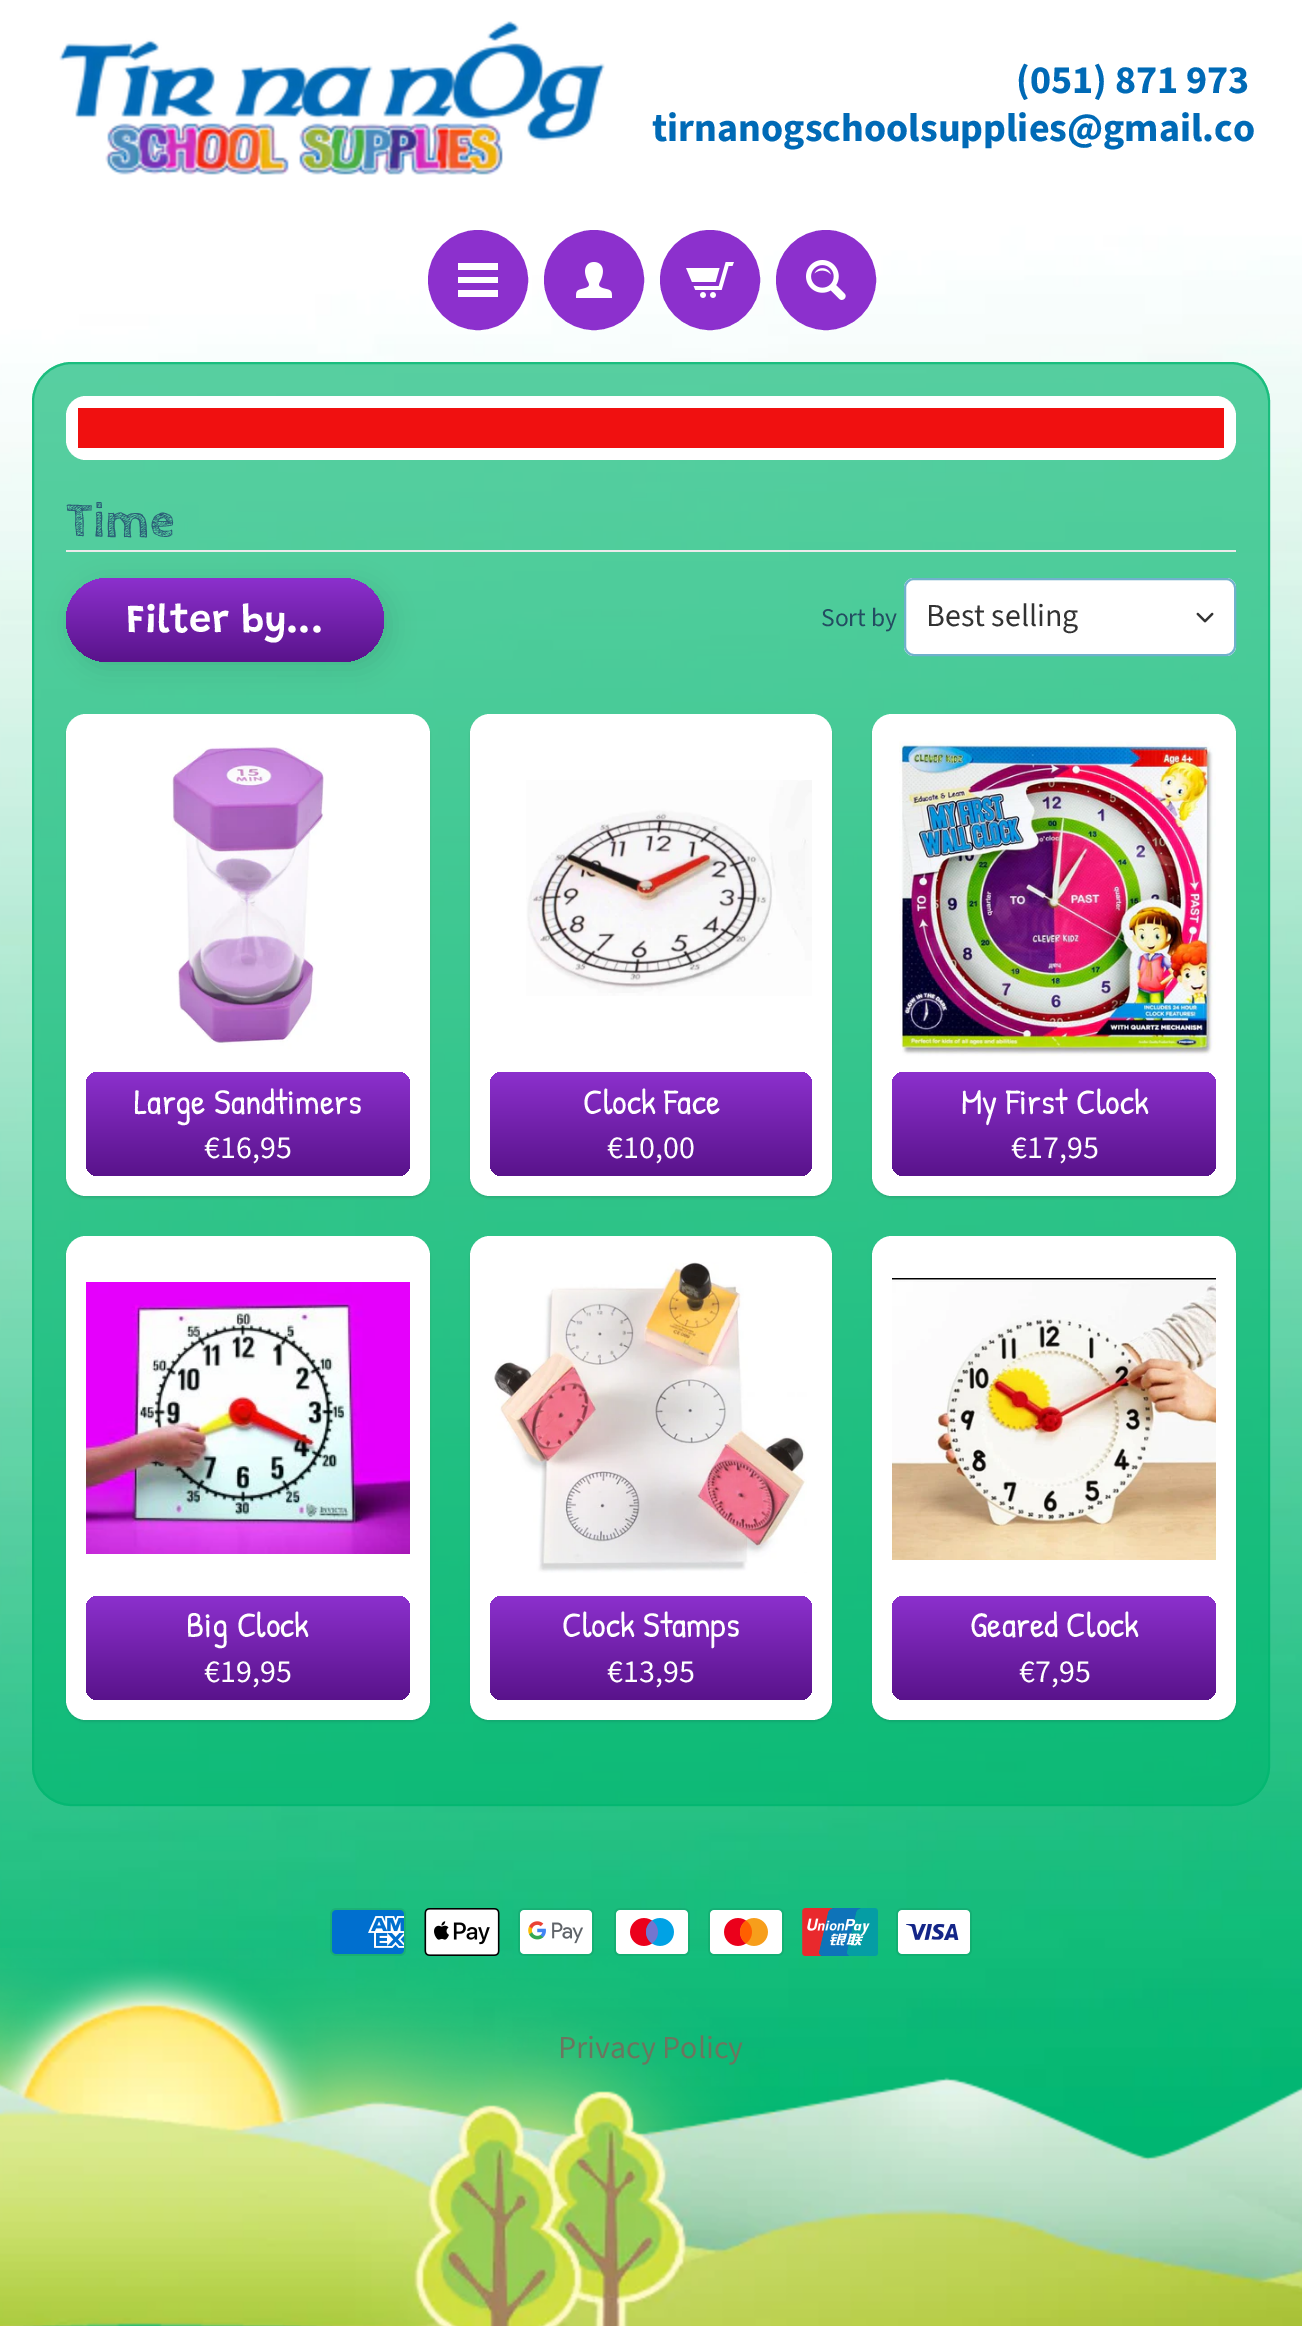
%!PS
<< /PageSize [1302 2326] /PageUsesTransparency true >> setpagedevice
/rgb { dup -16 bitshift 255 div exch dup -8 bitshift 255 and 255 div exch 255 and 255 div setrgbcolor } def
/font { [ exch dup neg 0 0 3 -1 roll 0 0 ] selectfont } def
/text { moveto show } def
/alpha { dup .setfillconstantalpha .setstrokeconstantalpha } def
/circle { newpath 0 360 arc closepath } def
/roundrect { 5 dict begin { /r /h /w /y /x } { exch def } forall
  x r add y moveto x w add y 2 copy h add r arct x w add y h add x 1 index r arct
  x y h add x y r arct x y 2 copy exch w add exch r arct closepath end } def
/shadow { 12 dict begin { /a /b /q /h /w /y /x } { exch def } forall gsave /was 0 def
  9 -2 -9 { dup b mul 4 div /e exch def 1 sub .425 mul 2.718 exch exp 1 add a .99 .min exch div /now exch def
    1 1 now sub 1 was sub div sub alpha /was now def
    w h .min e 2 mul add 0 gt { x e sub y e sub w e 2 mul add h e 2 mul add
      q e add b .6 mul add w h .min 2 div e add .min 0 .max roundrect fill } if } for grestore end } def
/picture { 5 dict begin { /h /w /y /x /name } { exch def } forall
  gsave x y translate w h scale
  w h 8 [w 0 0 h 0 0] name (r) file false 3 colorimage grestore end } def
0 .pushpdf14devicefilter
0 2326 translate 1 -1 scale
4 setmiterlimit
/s1 { /SourceSansPro-Bold 40 font 16#006AB6 rgb } def
/s2 { /CabinSketch-Bold 50 font 16#2B5F77 rgb } def
/s3 { /Grandstander-SemiBold 40 font 16#FFFFFF rgb } def
/s4 { /SourceSansPro-Regular 25.5 font 16#234D61 rgb } def
/s5 { /SourceSansPro-Regular 32 font 16#333333 rgb } def
/s6 { /PatrickHand-Regular 36 font 16#FFFFFF rgb } def
/s7 { /SourceSansPro-Regular 32 font 16#FFFFFF rgb } def
/s8 { /SourceSansPro-Regular 32 font 16#6B765F rgb } def
16#FFFFFF rgb
0 0 1302 2326 rectfill
(pic1.raw) 0 0 1302 2326 picture
(pic2.raw) 59 21 546 154 picture
s1
(\(051\) 871 973) 1016 93 text
(tirnanogschoolsupplies@gmail.co) 652 141 text
16#8C30CD rgb
478 280 47 circle gsave fill grestore
6 setlinewidth
stroke
16#FFFFFF rgb
498 270 moveto 458 270 lineto 458 263 lineto 498 263 lineto closepath 498 277 moveto 458 277 lineto 458 283 lineto 498 283 lineto closepath 498 290 moveto 458 290 lineto 458 297 lineto 498 297 lineto closepath fill
16#8C30CD rgb
594 280 47 circle gsave fill grestore
stroke
(pic3.raw) 576 262 36 36 picture
710 280 47 circle gsave fill grestore
stroke
(pic4.raw) 686 262 48 36 picture
826 280 47 circle gsave fill grestore
stroke
(pic5.raw) 806 260 40 40 picture
0.65 alpha
16#00B66F rgb
32 362 1238 1444 40 roundrect fill
0.7 alpha
2 setlinewidth
33 363 1236 1442 39 roundrect stroke
1 alpha
16#FFFFFF rgb
66 396 1170 64 20 roundrect fill
16#F01010 rgb
78 408 1146 40 rectfill
16#EBEBEB rgb
66 550 1170 2 rectfill
s2
(Time) 66 536 text
16#000000 rgb
72 584 318 84 42 12 0.1 shadow
gsave 66 578 318 84 42 roundrect clip newpath
<< /ShadingType 2 /ColorSpace /DeviceRGB /Coords [225 578 225 662] /Extend [true true] /Function << /FunctionType 2 /Domain [0 1] /C0 [0.549 0.188 0.804] /C1 [0.349 0.075 0.545] /N 1 >> >> shfill grestore
s3
(Filter by...) 126 632 text
s4
(Sort by) 821 626 text
16#FFFFFF rgb
904 578 332 78 10 roundrect fill
(pic6.raw) 1196 612 18 11 picture
16#70B1CC rgb
905 579 330 76 9 roundrect stroke
s5
(Best selling) 926 626 text
16#000000 rgb
66 716 364 482 20 1 0.1 shadow
16#FFFFFF rgb
66 714 364 482 20 roundrect fill
(pic7.raw) 172 746 152 303 picture
gsave 86 1072 324 104 12 roundrect clip newpath
<< /ShadingType 2 /ColorSpace /DeviceRGB /Coords [248 1072 248 1176] /Extend [true true] /Function << /FunctionType 2 /Domain [0 1] /C0 [0.549 0.188 0.804] /C1 [0.349 0.075 0.545] /N 1 >> >> shfill grestore
s6
(Large Sandtimers) 134 1114 text
s7
(€16,95) 204 1158 text
16#000000 rgb
470 716 362 482 20 1 0.1 shadow
16#FFFFFF rgb
470 714 362 482 20 roundrect fill
(pic8.raw) 526 780 286 216 picture
gsave 490 1072 322 104 12 roundrect clip newpath
<< /ShadingType 2 /ColorSpace /DeviceRGB /Coords [651 1072 651 1176] /Extend [true true] /Function << /FunctionType 2 /Domain [0 1] /C0 [0.549 0.188 0.804] /C1 [0.349 0.075 0.545] /N 1 >> >> shfill grestore
s6
(Clock Face) 583 1114 text
s7
(€10,00) 607 1158 text
16#000000 rgb
872 716 364 482 20 1 0.1 shadow
16#FFFFFF rgb
872 714 364 482 20 roundrect fill
(pic9.raw) 899 741 317 315 picture
gsave 892 1072 324 104 12 roundrect clip newpath
<< /ShadingType 2 /ColorSpace /DeviceRGB /Coords [1054 1072 1054 1176] /Extend [true true] /Function << /FunctionType 2 /Domain [0 1] /C0 [0.549 0.188 0.804] /C1 [0.349 0.075 0.545] /N 1 >> >> shfill grestore
s6
(My First Clock) 961 1114 text
s7
(€17,95) 1011 1158 text
16#000000 rgb
66 1238 364 484 20 1 0.1 shadow
16#FFFFFF rgb
66 1236 364 484 20 roundrect fill
(pic10.raw) 86 1282 324 272 picture
gsave 86 1596 324 104 12 roundrect clip newpath
<< /ShadingType 2 /ColorSpace /DeviceRGB /Coords [248 1596 248 1700] /Extend [true true] /Function << /FunctionType 2 /Domain [0 1] /C0 [0.549 0.188 0.804] /C1 [0.349 0.075 0.545] /N 1 >> >> shfill grestore
s6
(Big Clock) 186 1637 text
s7
(€19,95) 204 1682 text
16#000000 rgb
470 1238 362 484 20 1 0.1 shadow
16#FFFFFF rgb
470 1236 362 484 20 roundrect fill
(pic11.raw) 494 1262 313 311 picture
gsave 490 1596 322 104 12 roundrect clip newpath
<< /ShadingType 2 /ColorSpace /DeviceRGB /Coords [651 1596 651 1700] /Extend [true true] /Function << /FunctionType 2 /Domain [0 1] /C0 [0.549 0.188 0.804] /C1 [0.349 0.075 0.545] /N 1 >> >> shfill grestore
s6
(Clock Stamps) 562 1637 text
s7
(€13,95) 607 1682 text
16#000000 rgb
872 1238 364 484 20 1 0.1 shadow
16#FFFFFF rgb
872 1236 364 484 20 roundrect fill
(pic12.raw) 892 1278 324 282 picture
gsave 892 1596 324 104 12 roundrect clip newpath
<< /ShadingType 2 /ColorSpace /DeviceRGB /Coords [1054 1596 1054 1700] /Extend [true true] /Function << /FunctionType 2 /Domain [0 1] /C0 [0.549 0.188 0.804] /C1 [0.349 0.075 0.545] /N 1 >> >> shfill grestore
s6
(Geared Clock) 970 1637 text
s7
(€7,95) 1019 1682 text
(pic13.raw) 0 1948 1302 378 picture
(pic14.raw) 330 1908 76 48 picture
(pic15.raw) 424 1908 76 48 picture
(pic16.raw) 518 1908 76 48 picture
(pic17.raw) 614 1908 76 48 picture
(pic18.raw) 708 1908 76 48 picture
(pic19.raw) 802 1908 76 48 picture
(pic20.raw) 896 1908 76 48 picture
s8
(Privacy Policy) 558 2058 text
.poppdf14devicefilter showpage
